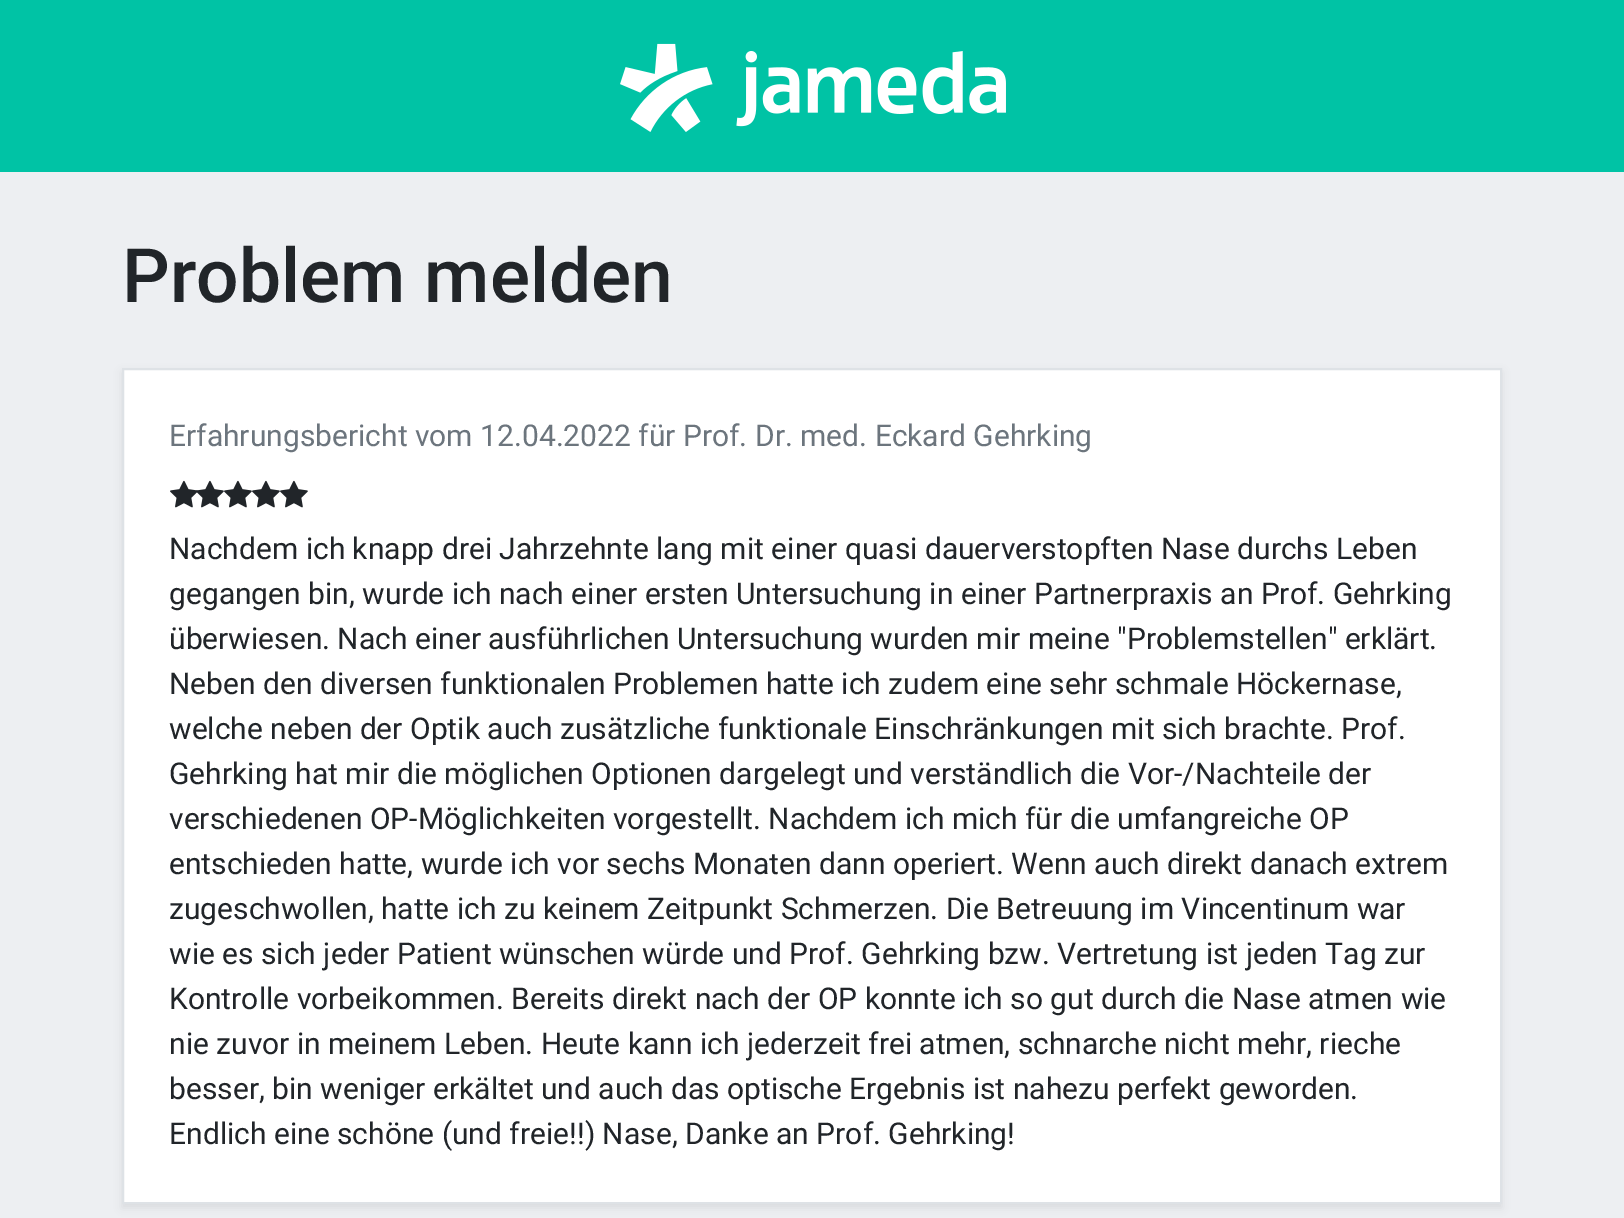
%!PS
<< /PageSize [1624 1218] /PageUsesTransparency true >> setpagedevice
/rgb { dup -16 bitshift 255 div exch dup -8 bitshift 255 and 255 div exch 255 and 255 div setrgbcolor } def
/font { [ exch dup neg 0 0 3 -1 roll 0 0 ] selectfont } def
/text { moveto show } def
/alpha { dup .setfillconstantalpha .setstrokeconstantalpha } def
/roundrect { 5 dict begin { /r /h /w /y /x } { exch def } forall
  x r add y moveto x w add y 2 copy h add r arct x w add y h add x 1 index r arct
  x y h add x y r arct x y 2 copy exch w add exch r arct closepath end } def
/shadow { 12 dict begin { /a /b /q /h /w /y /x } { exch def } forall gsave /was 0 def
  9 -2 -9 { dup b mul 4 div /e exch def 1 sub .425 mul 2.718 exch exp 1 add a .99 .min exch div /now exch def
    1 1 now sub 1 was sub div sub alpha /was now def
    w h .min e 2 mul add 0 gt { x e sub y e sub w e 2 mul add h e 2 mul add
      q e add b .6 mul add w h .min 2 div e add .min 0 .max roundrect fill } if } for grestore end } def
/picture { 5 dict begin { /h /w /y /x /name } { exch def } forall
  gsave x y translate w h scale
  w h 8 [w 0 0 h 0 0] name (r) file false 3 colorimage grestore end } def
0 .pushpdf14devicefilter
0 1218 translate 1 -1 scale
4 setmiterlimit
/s1 { /Roboto-Medium 75 font 16#212529 rgb } def
/s2 { /Roboto-Regular 30 font 16#6C757D rgb } def
/s3 { /Roboto-Regular 30 font 16#212529 rgb } def
16#00C3A5 rgb
0 0 1624 1218 rectfill
(pic1.raw) 620 43 386 89 picture
16#EDEFF2 rgb
0 172 1624 1046 rectfill
s1
(Problem melden) 122 302 text
16#000000 rgb
122 372 1380 836 0 4 0.07 shadow
16#FFFFFF rgb
123 369 moveto 1501 369 lineto 1501 1203 lineto 123 1203 lineto closepath gsave fill grestore
16#DEE2E6 rgb
2 setlinewidth
stroke
s2
(Erfahrungsbericht vom 12.04.2022 für Prof. Dr. med. Eckard Gehrking) 169 446 text
(pic2.raw) 170 480 28 28 picture
(pic3.raw) 196 480 28 28 picture
(pic2.raw) 224 480 28 28 picture
(pic2.raw) 252 480 28 28 picture
(pic2.raw) 280 480 28 28 picture
s3
(Nachdem ich knapp drei Jahrzehnte lang mit einer quasi dauerverstopften Nase durchs Leben) 169 559 text
(gegangen bin, wurde ich nach einer ersten Untersuchung in einer Partnerpraxis an Prof. Gehrking) 169 604 text
(überwiesen. Nach einer ausführlichen Untersuchung wurden mir meine "Problemstellen" erklärt.) 169 649 text
(Neben den diversen funktionalen Problemen hatte ich zudem eine sehr schmale Höckernase,) 169 694 text
(welche neben der Optik auch zusätzliche funktionale Einschränkungen mit sich brachte. Prof.) 169 739 text
(Gehrking hat mir die möglichen Optionen dargelegt und verständlich die Vor-/Nachteile der) 169 784 text
(verschiedenen OP-Möglichkeiten vorgestellt. Nachdem ich mich für die umfangreiche OP) 169 829 text
(entschieden hatte, wurde ich vor sechs Monaten dann operiert. Wenn auch direkt danach extrem) 169 874 text
(zugeschwollen, hatte ich zu keinem Zeitpunkt Schmerzen. Die Betreuung im Vincentinum war) 169 919 text
(wie es sich jeder Patient wünschen würde und Prof. Gehrking bzw. Vertretung ist jeden Tag zur) 169 964 text
(Kontrolle vorbeikommen. Bereits direkt nach der OP konnte ich so gut durch die Nase atmen wie) 169 1009 text
(nie zuvor in meinem Leben. Heute kann ich jederzeit frei atmen, schnarche nicht mehr, rieche) 169 1054 text
(besser, bin weniger erkältet und auch das optische Ergebnis ist nahezu perfekt geworden.) 169 1099 text
(Endlich eine schöne \(und freie!!\) Nase, Danke an Prof. Gehrking!) 169 1144 text
.poppdf14devicefilter showpage
